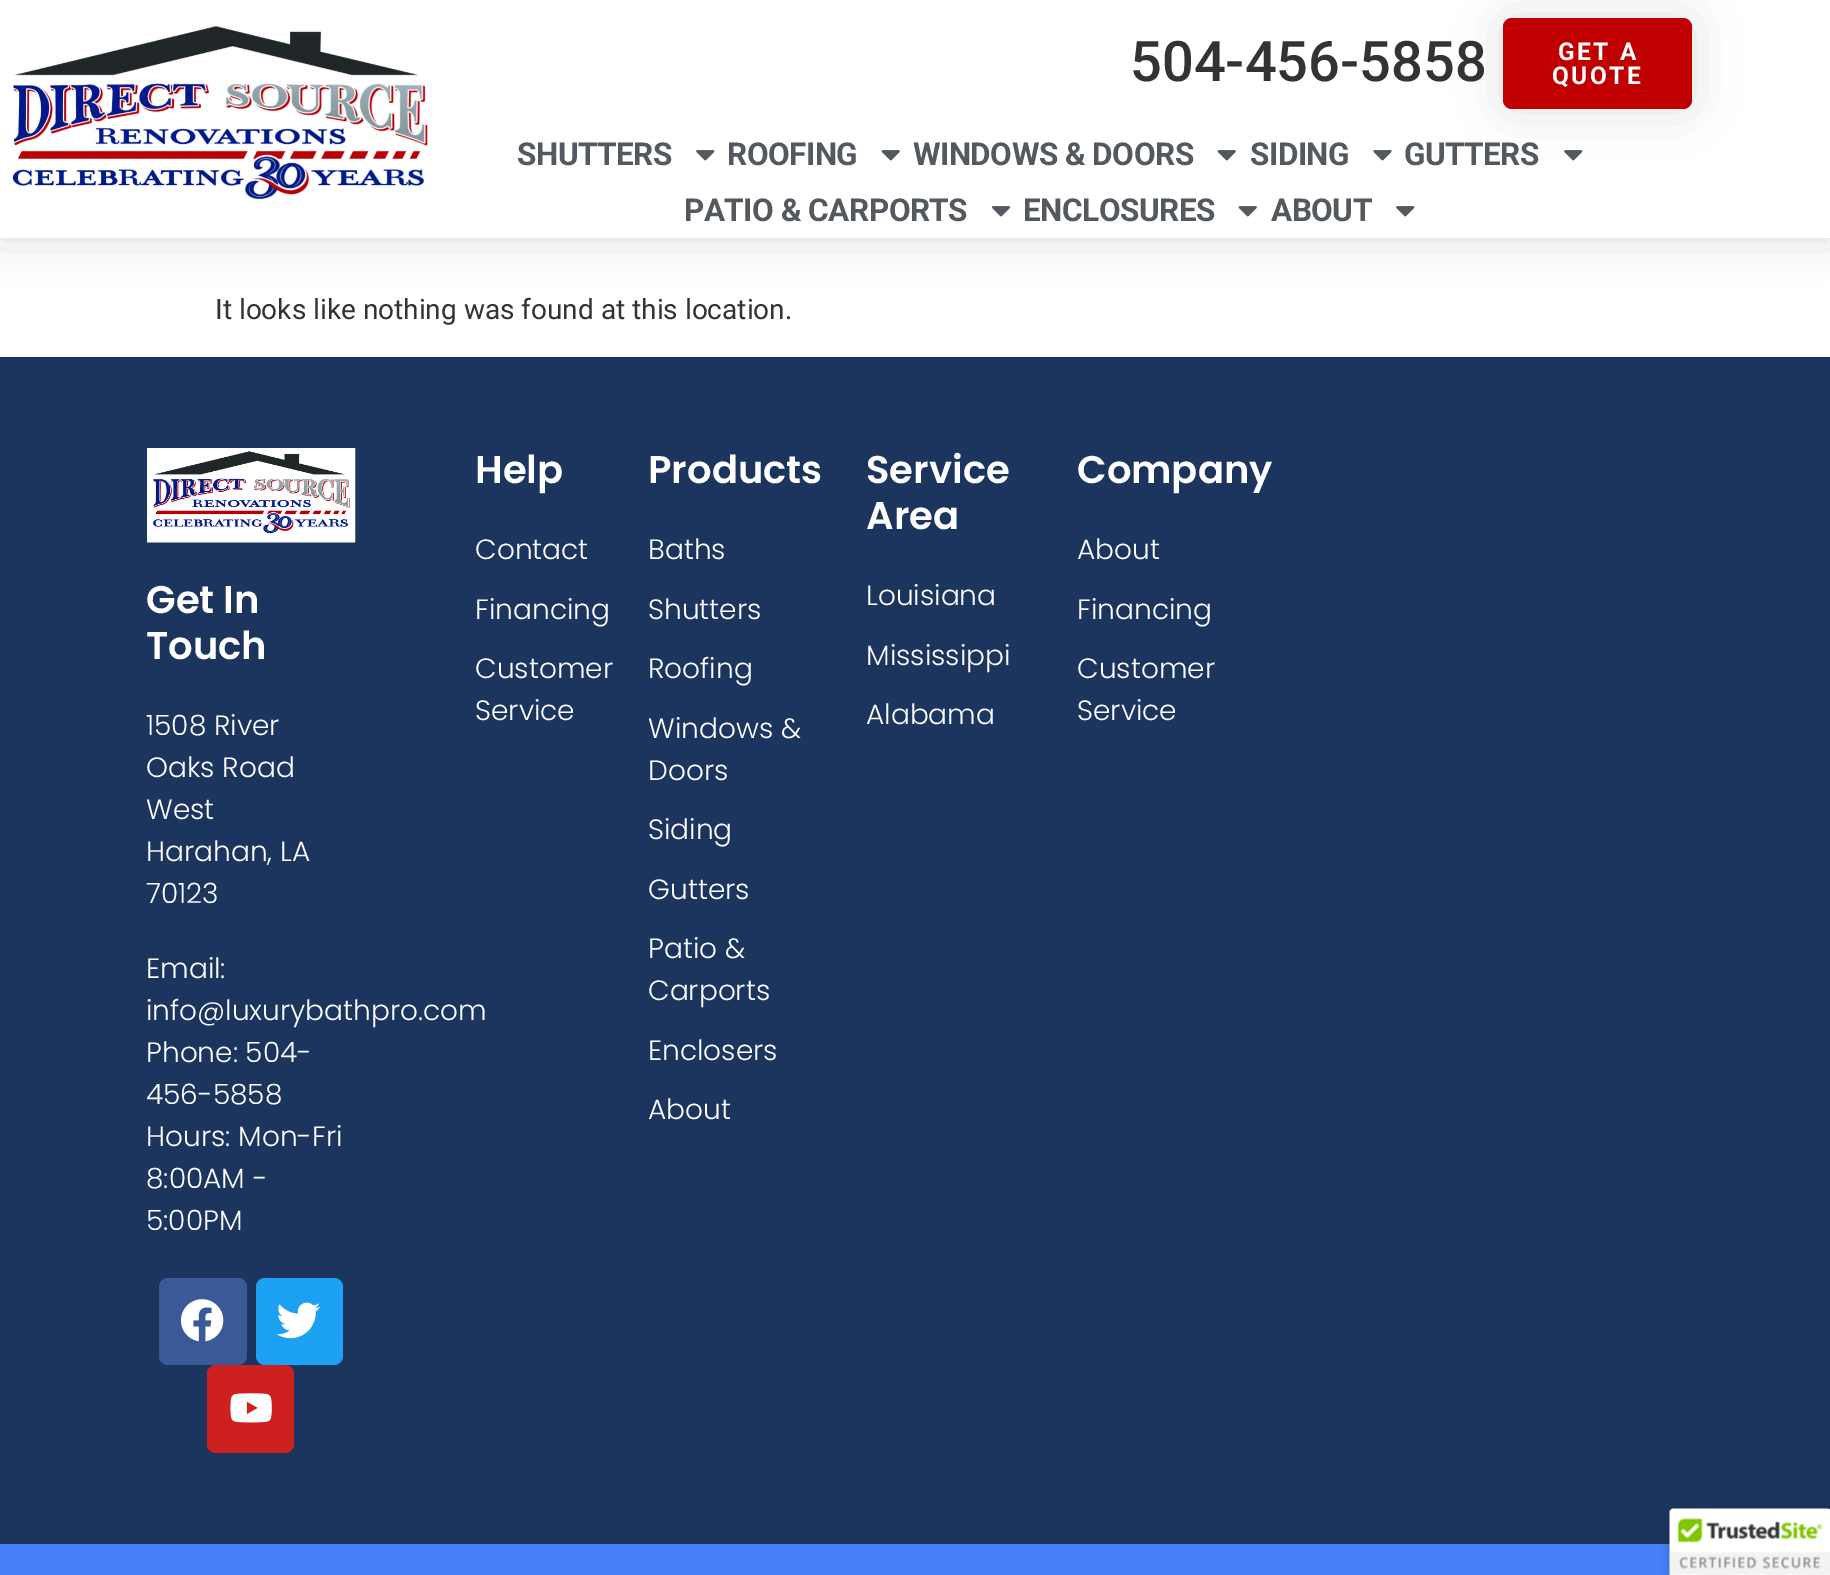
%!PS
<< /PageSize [1830 1575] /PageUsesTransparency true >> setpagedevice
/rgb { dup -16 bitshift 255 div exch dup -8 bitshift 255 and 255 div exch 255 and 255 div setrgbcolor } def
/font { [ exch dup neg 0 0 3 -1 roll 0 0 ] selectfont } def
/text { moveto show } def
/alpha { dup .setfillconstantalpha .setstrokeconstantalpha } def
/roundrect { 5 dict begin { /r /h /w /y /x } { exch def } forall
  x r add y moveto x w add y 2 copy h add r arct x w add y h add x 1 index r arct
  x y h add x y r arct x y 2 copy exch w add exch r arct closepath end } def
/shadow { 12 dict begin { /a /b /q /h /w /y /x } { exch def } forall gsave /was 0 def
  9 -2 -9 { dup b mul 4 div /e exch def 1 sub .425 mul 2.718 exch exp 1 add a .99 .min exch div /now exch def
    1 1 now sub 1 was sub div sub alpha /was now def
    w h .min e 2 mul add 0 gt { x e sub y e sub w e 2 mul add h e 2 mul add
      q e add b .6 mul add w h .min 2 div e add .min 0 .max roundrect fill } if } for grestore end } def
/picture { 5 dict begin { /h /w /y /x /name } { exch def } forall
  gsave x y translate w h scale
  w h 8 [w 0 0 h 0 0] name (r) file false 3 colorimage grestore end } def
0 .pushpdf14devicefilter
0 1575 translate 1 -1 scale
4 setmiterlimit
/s1 { /Roboto-Medium 56 font 16#333333 rgb } def
/s2 { /Roboto-Regular 28 font 16#333333 rgb } def
/s3 { /Poppins-SemiBold 38.5 font 16#FFFFFF rgb } def
/s4 { /Poppins-Light 28 font 16#FFFFFF rgb } def
16#FFFFFF rgb
0 0 1830 1575 rectfill
16#000000 rgb
0 0 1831 238 0 21 0.15 shadow
16#FFFFFF rgb
0 0 1830 238 rectfill
(pic1.raw) 12 26 416 174 picture
s1
(504-456-5858) 1130 81 text
16#000000 rgb
1503 18 189 91 9 23.5 0.12 shadow
16#C00000 rgb
1503 18 189 91 9 roundrect fill
/Roboto-Bold 24.5 font
16#FFFFFF rgb
1558 60 moveto 2.5 0 (GET A) ashow
1552 84 moveto 2.5 0 (QUOTE) ashow
/Roboto-Bold 31.5 font
16#54595F rgb
517 165 moveto -0.5 0 (SHUTTERS) ashow
(pic2.raw) 696 150 19 11 picture
727 165 moveto -0.5 0 (ROOFING) ashow
(pic3.raw) 881 150 19 11 picture
913 165 moveto -0.5 0 (WINDOWS & DOORS) ashow
(pic3.raw) 1217 150 19 11 picture
1250 165 moveto -0.5 0 (SIDING) ashow
(pic4.raw) 1373 150 19 11 picture
1404 165 moveto -0.5 0 (GUTTERS) ashow
(pic5.raw) 1564 150 19 11 picture
684 221 moveto -0.5 0 (PATIO & CARPORTS) ashow
(pic6.raw) 991 206 20 11 picture
1023 221 moveto -0.5 0 (ENCLOSURES) ashow
(pic3.raw) 1238 206 19 11 picture
1271 221 moveto -0.5 0 (ABOUT) ashow
(pic2.raw) 1396 206 19 11 picture
s2
(It looks like nothing was found at this location.) 215 319 text
16#1C355E rgb
0 357 1830 1187 rectfill
(pic7.raw) 147 448 209 95 picture
s3
(Get In) 146 613 text
(Touch) 146 659 text
s4
(1508 River) 146 735 text
(Oaks Road) 146 777 text
(West) 146 819 text
(Harahan, LA) 146 861 text
(70123) 146 903 text
(Email:) 146 978 text
(info@luxurybathpro.com) 146 1020 text
(Phone: 504-) 146 1062 text
(456-5858) 146 1104 text
(Hours: Mon-Fri) 146 1146 text
(8:00AM -) 146 1188 text
(5:00PM) 146 1230 text
16#3B5998 rgb
159 1278 88 87 9 roundrect fill
(pic8.raw) 180 1299 44 43 picture
16#1DA1F2 rgb
256 1278 87 87 9 roundrect fill
(pic9.raw) 277 1302 43 37 picture
16#CD201F rgb
207 1365 87 88 9 roundrect fill
(pic10.raw) 230 1393 42 30 picture
s3
(Help) 475 483 text
s4
(Contact) 475 559 text
(Financing) 475 619 text
(Customer) 475 678 text
(Service) 475 720 text
s3
(Products) 648 483 text
s4
(Baths) 648 559 text
(Shutters) 648 619 text
(Roofing) 648 678 text
(Windows &) 648 738 text
(Doors) 648 780 text
(Siding) 648 839 text
(Gutters) 648 899 text
(Patio &) 648 958 text
(Carports) 648 1000 text
(Enclosers) 648 1060 text
(About) 648 1119 text
s3
(Service) 866 483 text
(Area) 866 529 text
s4
(Louisiana) 866 605 text
(Mississippi) 866 665 text
(Alabama) 866 724 text
s3
(Company) 1077 483 text
s4
(About) 1077 559 text
(Financing) 1077 619 text
(Customer) 1077 678 text
(Service) 1077 720 text
16#467FF7 rgb
0 1544 1670 31 rectfill
16#000000 rgb
1670 1509 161 66 4 4.5 0.2 shadow
16#FFFFFF rgb
1674 1509 moveto 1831 1509 lineto 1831 1575 lineto 1670 1575 lineto 1670 1513 lineto 1670 1511 1672 1509 1674 1509 curveto closepath fill
(pic11.raw) 1669 1508 161 67 picture
.poppdf14devicefilter showpage
